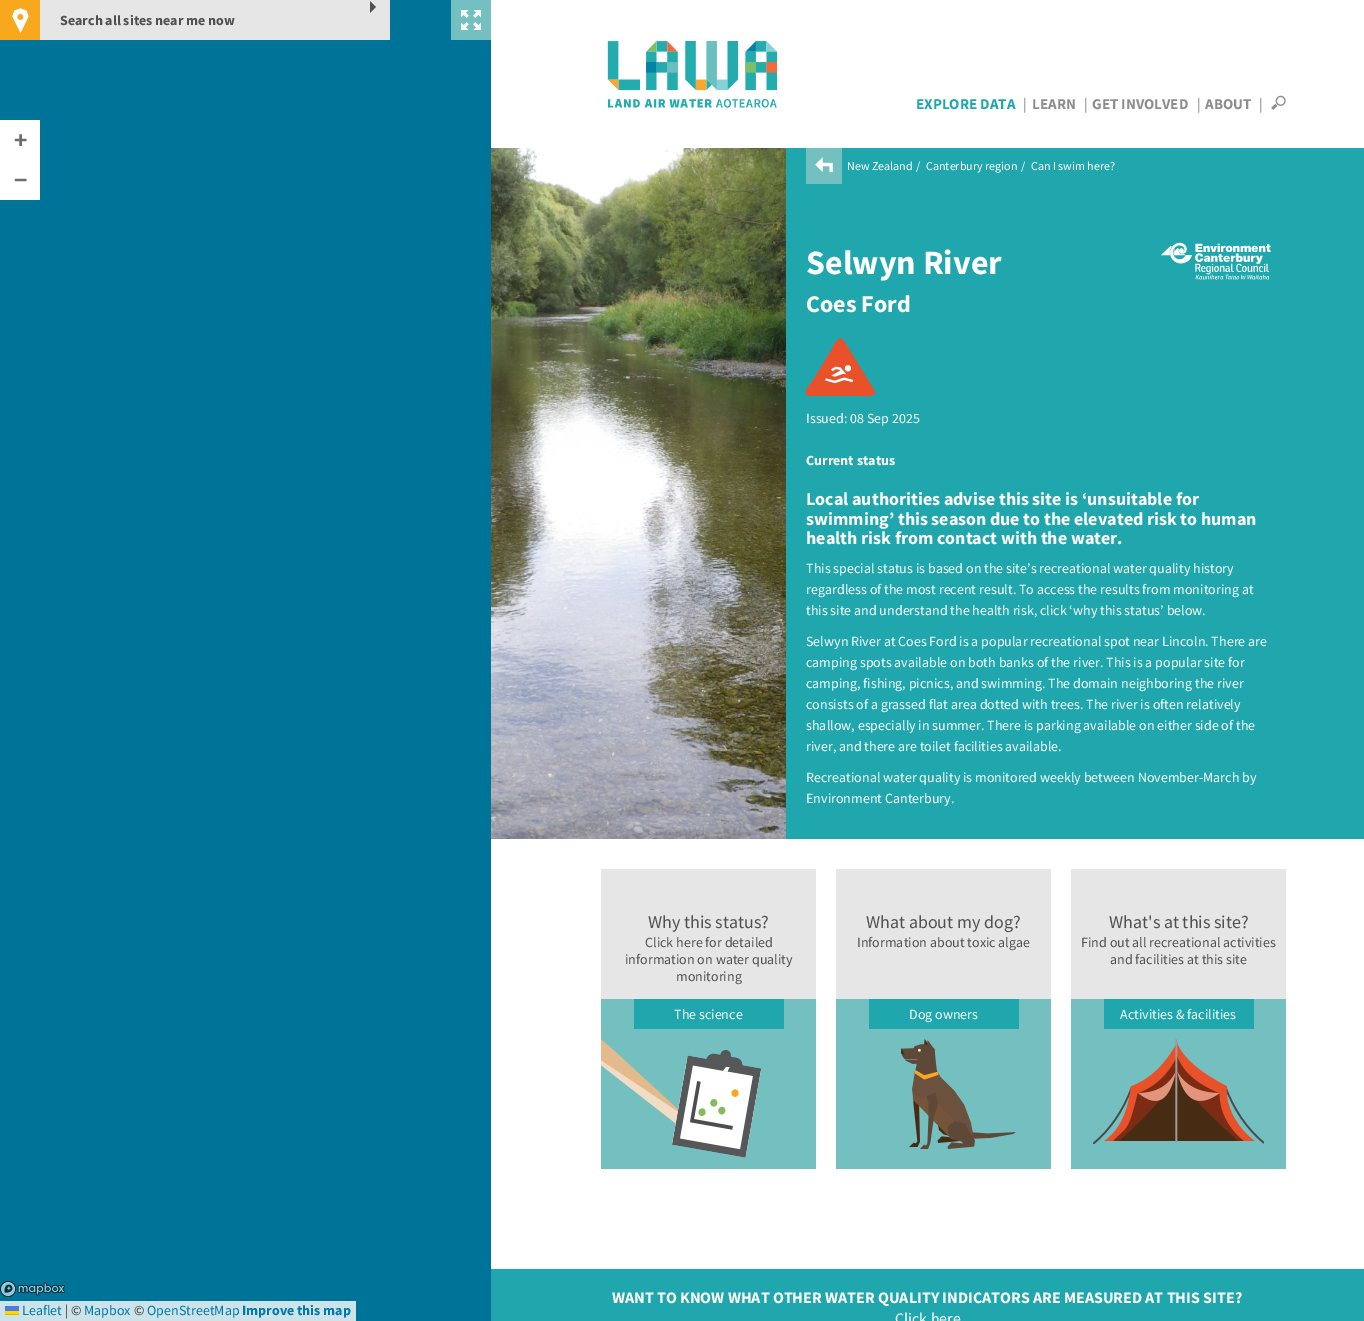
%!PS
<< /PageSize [1364 1321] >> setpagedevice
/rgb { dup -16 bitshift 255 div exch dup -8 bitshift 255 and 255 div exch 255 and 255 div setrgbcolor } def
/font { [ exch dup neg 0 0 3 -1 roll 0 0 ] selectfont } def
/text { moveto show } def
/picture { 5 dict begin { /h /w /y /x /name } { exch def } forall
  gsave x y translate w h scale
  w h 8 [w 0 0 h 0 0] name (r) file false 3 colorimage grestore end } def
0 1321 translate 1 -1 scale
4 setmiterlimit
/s1 { /SourceSansPro-Bold 14 font 16#505050 rgb } def
/s2 { /DejaVuSansMono-Bold 22 font 16#6E6E6E rgb } def
/s3 { /SourceSansPro-Regular 14 font 16#0078A8 rgb } def
/s4 { /SourceSansPro-Regular 14 font 16#333333 rgb } def
/s5 { /SourceSansPro-Bold 14 font 16#0078A8 rgb } def
/s6 { /SourceSansPro-Bold 15 font 16#20A7AD rgb } def
/s7 { /SourceSansPro-Regular 15 font 16#8D8D8D rgb } def
/s8 { /SourceSansPro-Bold 15 font 16#8D8D8D rgb } def
/s9 { /SourceSansPro-Regular 12 font 16#FFFFFF rgb } def
/s10 { /SourceSansPro-Bold 34 font 16#FFFFFF rgb } def
/s11 { /SourceSansPro-Bold 24 font 16#FFFFFF rgb } def
/s12 { /SourceSansPro-Regular 14 font 16#FFFFFF rgb } def
/s13 { /SourceSansPro-Bold 14 font 16#FFFFFF rgb } def
/s14 { /SourceSansPro-Bold 18 font 16#FFFFFF rgb } def
/s15 { /SourceSansPro-Regular 18 font 16#505050 rgb } def
/s16 { /SourceSansPro-Regular 14 font 16#505050 rgb } def
/s17 { /SourceSansPro-Bold 16 font 16#FFFFFF rgb } def
/s18 { /SourceSansPro-Regular 16 font 16#FFFFFF rgb } def
16#FFFFFF rgb
0 0 1364 1321 rectfill
16#007398 rgb
0 0 491 1321 rectfill
16#F8A81C rgb
0 0 40 40 rectfill
(pic1.raw) 12 8 17 25 picture
16#E7E6E6 rgb
40 0 350 40 rectfill
16#505050 rgb
370 13 moveto 376 7 lineto 370 1 lineto closepath fill
s1
(Search all sites near me now) 60 25 text
16#FFFFFF rgb
0 120 40 80 rectfill
s2
(+) 14 147 text
(−) 14 187 text
16#CCE3EA rgb
0 1301 356 20 rectfill
(pic2.raw) 0 1281 65 16 picture
s3
(Leaflet) 22 1315 text
16#4C7BE1 rgb
5 1306 14 5 rectfill
16#FFD500 rgb
5 1311 14 3 rectfill
16#E0BC00 rgb
5 1314 14 1 rectfill
s4
(| ©) 65 1315 text
s3
(Mapbox) 84 1315 text
s4
(©) 134 1315 text
s3
(OpenStreetMap) 147 1315 text
s5
(Improve this map) 242 1315 text
16#74C0C1 rgb
451 0 40 40 rectfill
(pic3.raw) 461 10 20 20 picture
(pic4.raw) 607 41 171 67 picture
s6
(EXPLORE DATA) 916 109 text
s7
(|) 1023 109 text
s8
(LEARN) 1032 109 text
s7
(|) 1084 109 text
s8
(GET INVOLVED) 1092 109 text
s7
(|) 1197 109 text
s8
(ABOUT) 1205 109 text
s7
(|) 1259 109 text
(pic5.raw) 1271 95 15 15 picture
16#20A7AD rgb
786 148 578 691 rectfill
(pic6.raw) 491 148 295 691 picture
16#74C0C1 rgb
806 148 36 36 rectfill
(pic7.raw) 815 157 18 16 picture
s9
(New Zealand) 847 170 text
(/) 916 170 text
(Canterbury region) 926 170 text
(/) 1021 170 text
(Can I swim here?) 1031 170 text
s10
(Selwyn River) 806 274 text
s11
(Coes Ford) 806 312 text
(pic8.raw) 1161 242 110 38 picture
gsave
806 148 465 671 rectclip
16#E85129 rgb
874 390 moveto 844 341 lineto 839 333 833 347 832 349 curveto 812 382 lineto 810 384 804 391 806 394 curveto 808 396 lineto 861 396 lineto 862 396 879 398 874 390 curveto closepath fill
grestore
(pic9.raw) 825 365 29 19 picture
s12
(Issued: 08 Sep 2025) 806 423 text
s13
(Current status) 806 465 text
s14
(Local authorities advise this site is ‘unsuitable for) 806 505 text
(swimming’ this season due to the elevated risk to human) 806 525 text
(health risk from contact with the water.) 806 544 text
s12
(This special status is based on the site’s recreational water quality history) 806 573 text
(regardless of the most recent result. To access the results from monitoring at) 806 594 text
(this site and understand the health risk, click ‘why this status’ below.) 806 615 text
(Selwyn River at Coes Ford is a popular recreational spot near Lincoln. There are) 806 646 text
(camping spots available on both banks of the river. This is a popular site for) 806 667 text
(camping, fishing, picnics, and swimming. The domain neighboring the river) 806 688 text
(consists of a grassed flat area dotted with trees. The river is often relatively) 806 709 text
(shallow, especially in summer. There is parking available on either side of the) 806 730 text
(river, and there are toilet facilities available.) 806 751 text
(Recreational water quality is monitored weekly between November-March by) 806 782 text
(Environment Canterbury.) 806 803 text
16#E7E6E6 rgb
601 869 215 130 rectfill
s15
(Why this status?) 648 928 text
s16
(Click here for detailed) 645 947 text
(information on water quality) 625 964 text
(monitoring) 676 981 text
16#74C0C1 rgb
601 999 215 170 rectfill
(pic10.raw) 601 1039 160 119 picture
16#20A7AD rgb
634 999 150 30 rectfill
s12
(The science) 674 1019 text
16#E7E6E6 rgb
836 869 215 130 rectfill
s15
(What about my dog?) 866 928 text
s16
(Information about toxic algae) 857 947 text
16#74C0C1 rgb
836 999 215 170 rectfill
(pic11.raw) 901 1039 115 110 picture
16#20A7AD rgb
869 999 150 30 rectfill
s12
(Dog owners) 909 1019 text
16#E7E6E6 rgb
1071 869 215 130 rectfill
s15
(What's at this site?) 1109 928 text
s16
(Find out all recreational activities) 1081 947 text
(and facilities at this site) 1110 964 text
16#74C0C1 rgb
1071 999 215 170 rectfill
(pic12.raw) 1093 1039 171 105 picture
16#20A7AD rgb
1104 999 150 30 rectfill
s12
(Activities & facilities) 1120 1019 text
16#20A7AD rgb
491 1269 873 52 rectfill
s17
(WANT TO KNOW WHAT OTHER WATER QUALITY INDICATORS ARE MEASURED AT THIS SITE?) 612 1303 text
s18
(Click here) 895 1324 text
showpage
